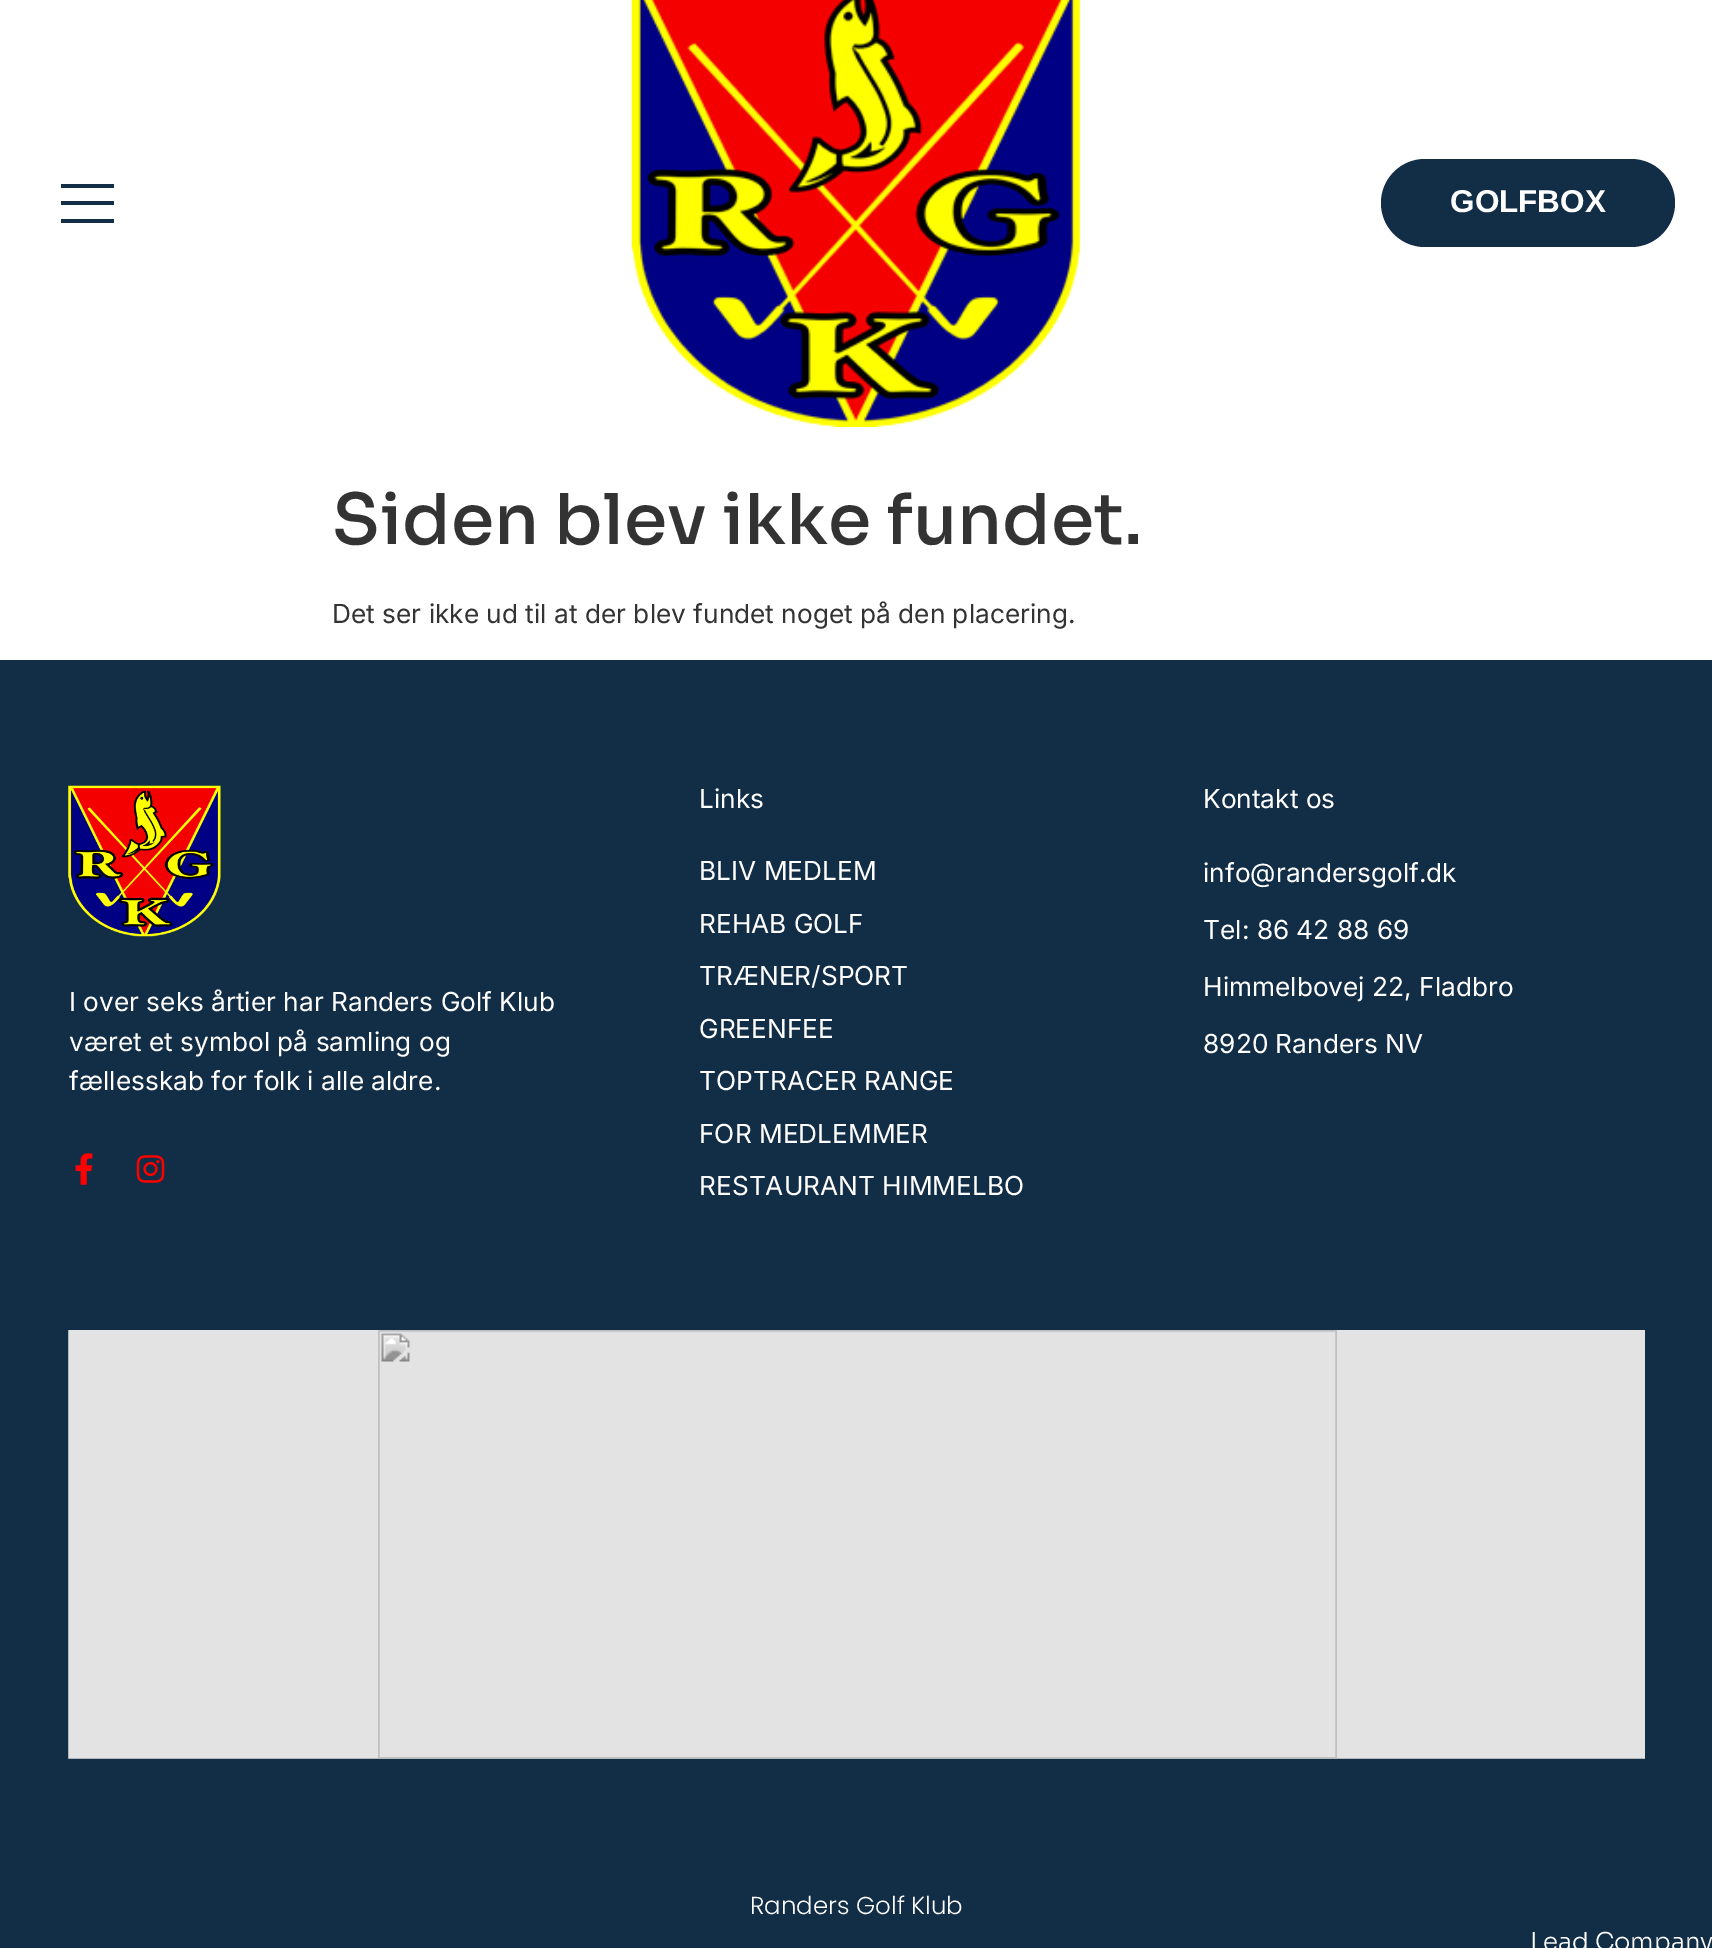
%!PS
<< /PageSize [1712 1948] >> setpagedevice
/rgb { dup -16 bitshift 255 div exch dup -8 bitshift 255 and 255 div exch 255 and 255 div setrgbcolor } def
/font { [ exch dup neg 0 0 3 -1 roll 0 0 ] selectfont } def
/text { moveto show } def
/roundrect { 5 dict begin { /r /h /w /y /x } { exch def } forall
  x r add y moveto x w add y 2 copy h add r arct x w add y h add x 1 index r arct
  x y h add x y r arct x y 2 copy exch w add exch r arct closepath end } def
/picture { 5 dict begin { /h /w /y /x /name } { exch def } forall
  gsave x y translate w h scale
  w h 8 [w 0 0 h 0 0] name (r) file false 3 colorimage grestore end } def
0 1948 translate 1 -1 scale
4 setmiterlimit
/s1 { /LiberationSans-Bold 31.5 font 16#FFFFFF rgb } def
/s2 { /Sora-Medium 70 font 16#333333 rgb } def
/s3 { /Inter-Regular 26.25 font 16#333333 rgb } def
/s4 { /Inter-Regular 26.25 font 16#FFFFFF rgb } def
/s5 { /Poppins-Light 24.5 font 16#FFFFFF rgb } def
/s6 { /Sora-Light 24.5 font 16#FFFFFF rgb } def
16#FFFFFF rgb
0 0 1712 1948 rectfill
16#122D46 rgb
61 201 53 4 rectfill
61 184 53 4 rectfill
61 219 53 4 rectfill
(pic1.raw) 631 0 449 427 picture
1381 159 294 88 44 roundrect fill
s1
(GOLFBOX) 1450 212 text
s2
(Siden blev ikke fundet.) 332 544 text
s3
(Det ser ikke ud til at der blev fundet noget på den placering.) 332 623 text
16#122D46 rgb
0 660 1712 1288 rectfill
(pic2.raw) 68 785 153 152 picture
s4
(I over seks årtier har Randers Golf Klub) 69 1011 text
(været et symbol på samling og) 69 1051 text
(fællesskab for folk i alle aldre.) 69 1090 text
(pic3.raw) 75 1153 18 32 picture
(pic4.raw) 136 1155 29 28 picture
(Links) 699 808 text
(BLIV MEDLEM) 699 880 text
(REHAB GOLF) 699 933 text
(TRÆNER/SPORT) 699 985 text
(GREENFEE) 699 1038 text
(TOPTRACER RANGE) 699 1090 text
(FOR MEDLEMMER) 699 1143 text
(RESTAURANT HIMMELBO) 699 1195 text
(Kontakt os) 1203 808 text
(info@randersgolf.dk) 1203 882 text
(Tel: 86 42 88 69) 1203 939 text
(Himmelbovej 22, Fladbro) 1203 996 text
(8920 Randers NV) 1203 1053 text
(pic5.raw) 68 1330 1577 429 picture
s5
(Randers Golf Klub) 750 1914 text
s6
(Lead Company) 1530 1950 text
showpage
